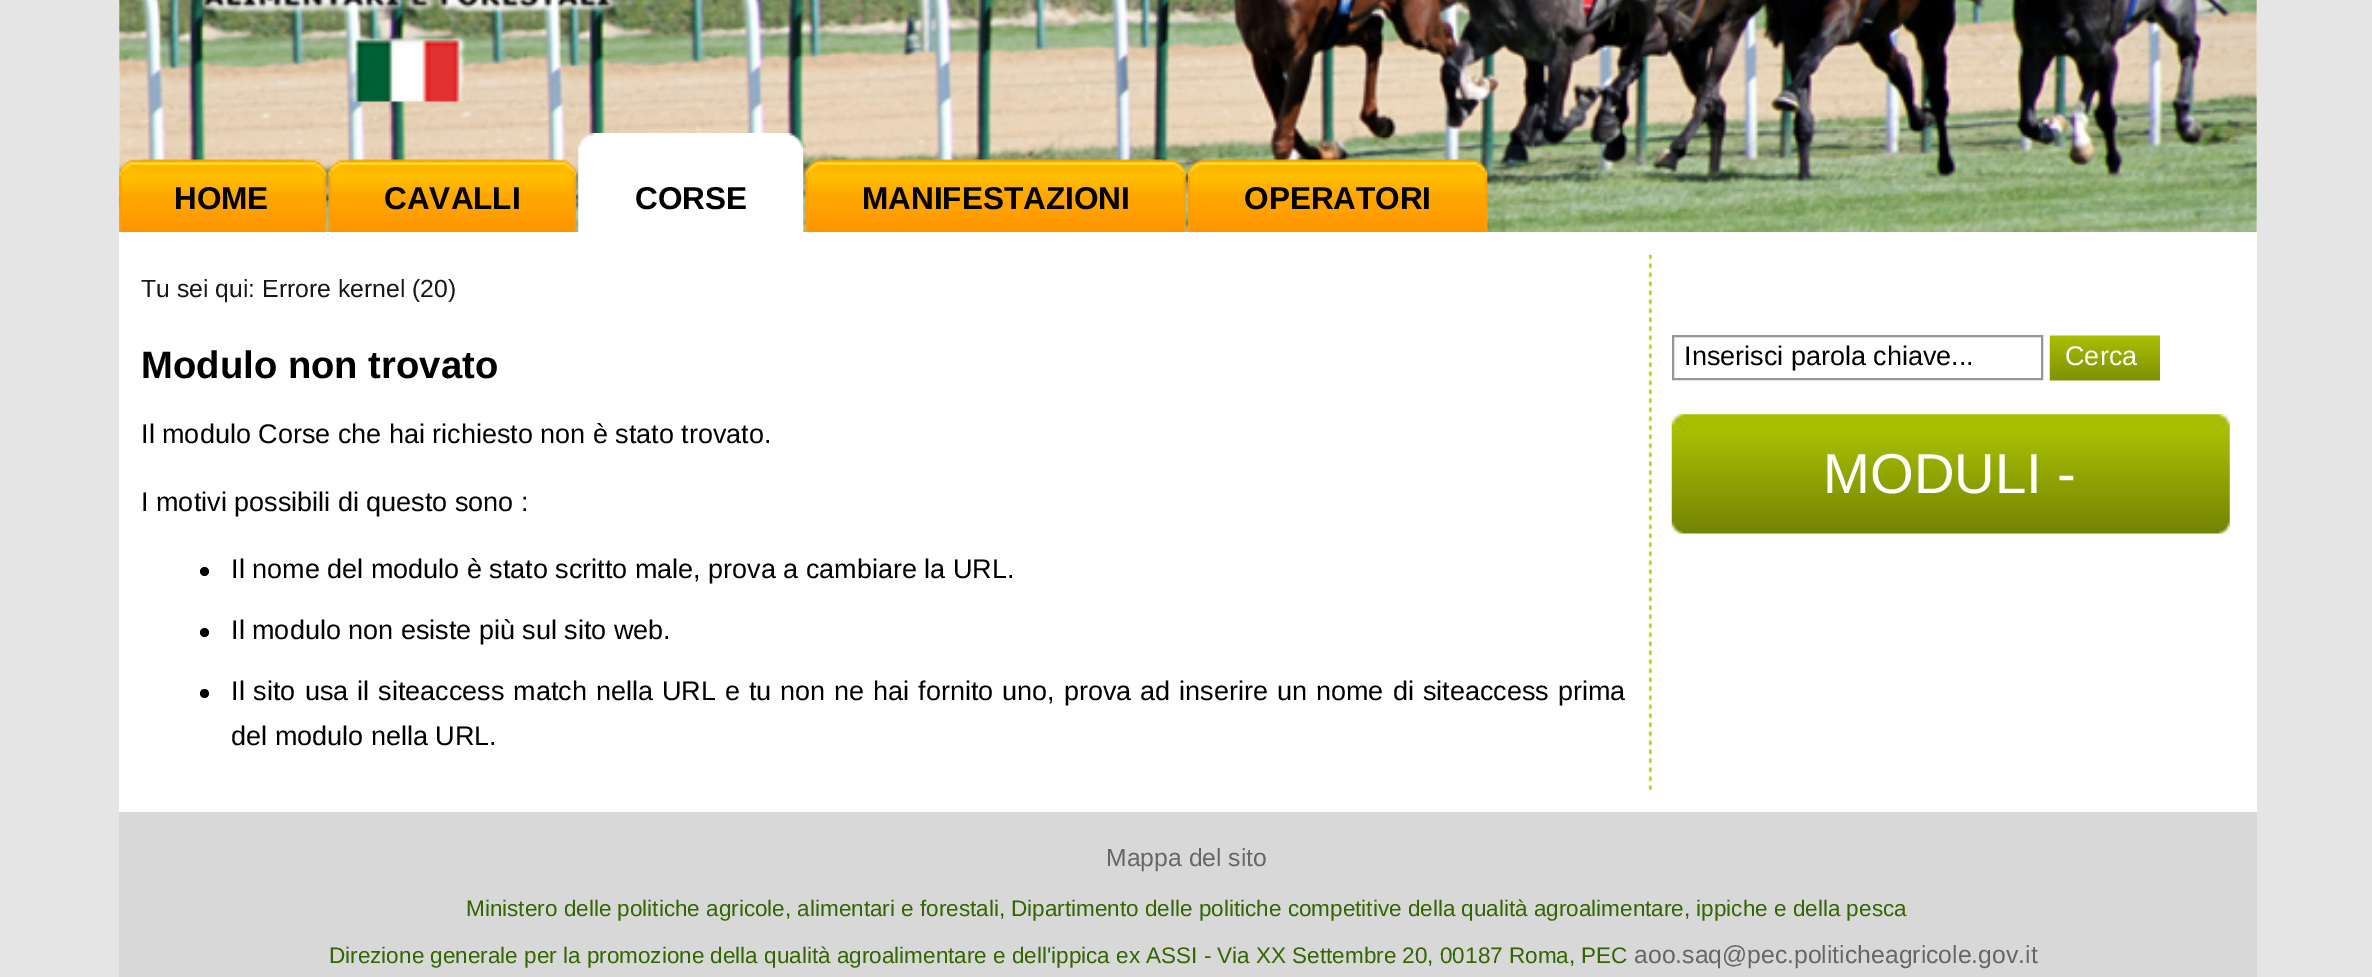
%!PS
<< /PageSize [2372 977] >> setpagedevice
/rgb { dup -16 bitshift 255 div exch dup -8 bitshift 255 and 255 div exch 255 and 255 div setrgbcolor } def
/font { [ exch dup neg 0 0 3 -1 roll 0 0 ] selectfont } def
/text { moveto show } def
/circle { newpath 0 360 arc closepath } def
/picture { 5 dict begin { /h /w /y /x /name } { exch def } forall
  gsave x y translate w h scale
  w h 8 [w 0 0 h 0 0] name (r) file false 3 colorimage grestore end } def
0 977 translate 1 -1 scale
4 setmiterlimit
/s1 { /LiberationSans-Bold 31.5 font 16#000000 rgb } def
/s2 { /LiberationSans-Regular 24.75 font 16#171717 rgb } def
/s3 { /LiberationSans-Bold 38.25 font 16#000000 rgb } def
/s4 { /LiberationSans-Regular 27 font 16#000000 rgb } def
/s5 { /LiberationSans-Regular 27 font 16#FFFFFF rgb } def
/s6 { /LiberationSans-Regular 56.25 font 16#FFFFFF rgb } def
/s7 { /LiberationSans-Regular 24.75 font 16#666666 rgb } def
/s8 { /LiberationSans-Regular 22.5 font 16#336600 rgb } def
16#E5E5E5 rgb
0 0 2372 977 rectfill
(pic1.raw) 119 0 2138 232 picture
(pic2.raw) 119 159 185 73 picture
(pic3.raw) 141 159 186 73 picture
s1
(HOME) 174 209 text
(pic4.raw) 328 159 226 73 picture
(pic5.raw) 351 159 225 73 picture
(CAVALLI) 384 209 text
(pic6.raw) 578 133 202 99 picture
(pic7.raw) 780 133 24 99 picture
(CORSE) 635 209 text
(pic8.raw) 805 159 359 73 picture
(pic9.raw) 828 159 358 73 picture
(MANIFESTAZIONI) 862 209 text
(pic10.raw) 1188 159 277 73 picture
(pic11.raw) 1210 159 278 73 picture
(OPERATORI) 1244 209 text
16#FFFFFF rgb
119 232 2138 580 rectfill
(pic12.raw) 1648 254 5 536 picture
s2
(Tu sei qui: Errore kernel \(20\)) 141 297 text
s3
(Modulo non trovato) 141 378 text
s4
(Il modulo Corse che hai richiesto non è stato trovato.) 141 443 text
(I motivi possibili di questo sono :) 141 511 text
204.5 571.5 4.5 circle fill
(Il nome del modulo è stato scritto male, prova a cambiare la URL.) 231 578 text
204.5 632.5 4.5 circle fill
(Il modulo non esiste più sul sito web.) 231 639 text
204.5 693.5 4.5 circle fill
231 700 moveto 1.5 0 32 (Il sito usa il siteaccess match nella URL e tu non ne hai fornito uno, prova ad inserire un nome di siteaccess prima) widthshow
(del modulo nella URL.) 231 745 text
16#959595 rgb
2 setlinewidth
1673 336 369 43 rectstroke
s4
(Inserisci parola chiave...) 1684 365 text
(pic13.raw) 2049 335 111 46 picture
s5
(Cerca) 2065 365 text
(pic14.raw) 1671 414 559 120 picture
s6
(MODULI -) 1823 493 text
16#D8D8D8 rgb
119 812 2138 165 rectfill
s7
(Mappa del sito) 1106 866 text
s8
(Ministero delle politiche agricole, alimentari e forestali, Dipartimento delle politiche competitive della qualità agroalimentare, ippiche e della pesca) 466 916 text
(Direzione generale per la promozione della qualità agroalimentare e dell'ippica ex ASSI - Via XX Settembre 20, 00187 Roma, PEC) 329 963 text
s7
(aoo.saq@pec.politicheagricole.gov.it) 1634 963 text
showpage
